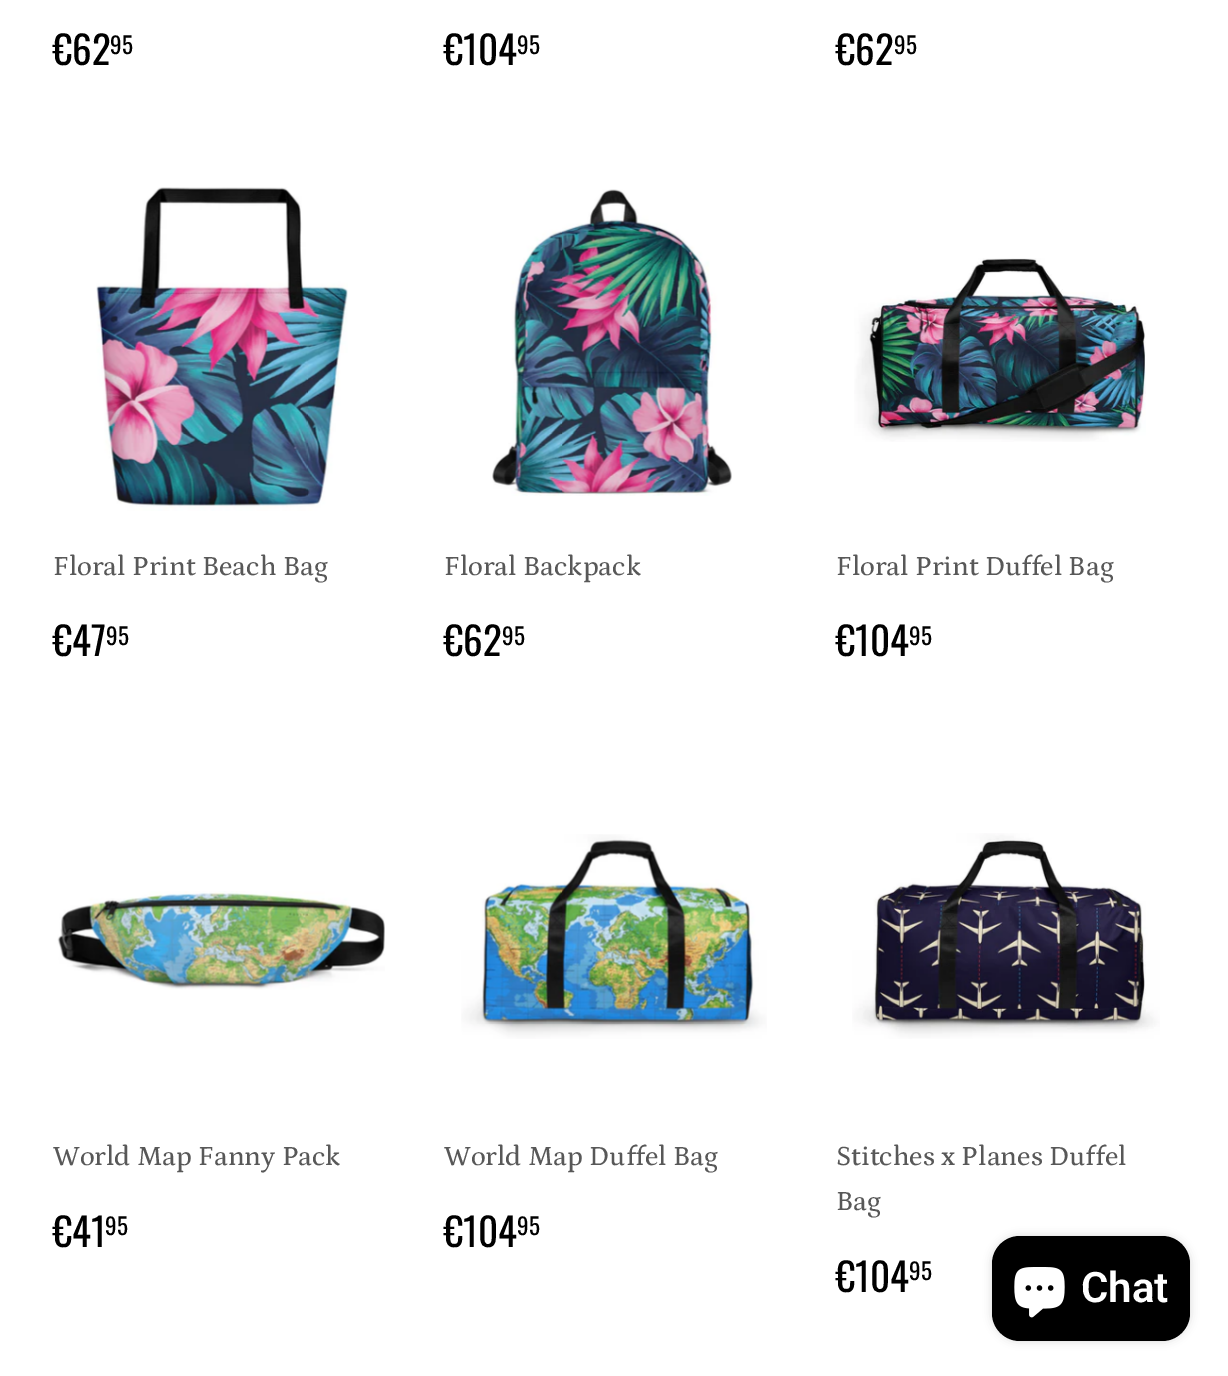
%!PS
<< /PageSize [1228 1376] /PageUsesTransparency true >> setpagedevice
/rgb { dup -16 bitshift 255 div exch dup -8 bitshift 255 and 255 div exch 255 and 255 div setrgbcolor } def
/font { [ exch dup neg 0 0 3 -1 roll 0 0 ] selectfont } def
/text { moveto show } def
/alpha { dup .setfillconstantalpha .setstrokeconstantalpha } def
/roundrect { 5 dict begin { /r /h /w /y /x } { exch def } forall
  x r add y moveto x w add y 2 copy h add r arct x w add y h add x 1 index r arct
  x y h add x y r arct x y 2 copy exch w add exch r arct closepath end } def
/shadow { 12 dict begin { /a /b /q /h /w /y /x } { exch def } forall gsave /was 0 def
  9 -2 -9 { dup b mul 4 div /e exch def 1 sub .425 mul 2.718 exch exp 1 add a .99 .min exch div /now exch def
    1 1 now sub 1 was sub div sub alpha /was now def
    w h .min e 2 mul add 0 gt { x e sub y e sub w e 2 mul add h e 2 mul add
      q e add b .6 mul add w h .min 2 div e add .min 0 .max roundrect fill } if } for grestore end } def
/picture { 5 dict begin { /h /w /y /x /name } { exch def } forall
  gsave x y translate w h scale
  w h 8 [w 0 0 h 0 0] name (r) file false 3 colorimage grestore end } def
0 .pushpdf14devicefilter
0 1376 translate 1 -1 scale
4 setmiterlimit
/s1 { /Oswald-Regular 39 font 16#000000 rgb } def
/s2 { /Oswald-Regular 23 font 16#000000 rgb } def
/s3 { /Petrona-Medium 28 font 16#585858 rgb } def
/s4 { /Roboto-SemiBold 42 font 16#FFFFFF rgb } def
16#FFFFFF rgb
0 0 1228 1376 rectfill
s1
(€62) 53 65 text
s2
(95) 110 54 text
s1
(€104) 444 65 text
s2
(95) 517 54 text
s1
(€62) 836 65 text
s2
(95) 894 54 text
(pic1.raw) 96 187 252 324 picture
s3
(Floral Print Beach Bag) 53 575 text
s1
(€47) 53 656 text
s2
(95) 106 645 text
(pic2.raw) 492 189 240 307 picture
s3
(Floral Backpack) 444 575 text
s1
(€62) 444 656 text
s2
(95) 502 645 text
(pic3.raw) 854 258 292 184 picture
s3
(Floral Print Duffel Bag) 836 575 text
s1
(€104) 836 656 text
s2
(95) 909 645 text
(pic4.raw) 57 891 328 99 picture
s3
(World Map Fanny Pack) 53 1165 text
s1
(€41) 53 1247 text
s2
(95) 105 1235 text
(pic5.raw) 461 834 306 205 picture
s3
(World Map Duffel Bag) 444 1165 text
s1
(€104) 444 1247 text
s2
(95) 517 1235 text
(pic6.raw) 852 833 308 206 picture
s3
(Stitches x Planes Duffel) 836 1165 text
(Bag) 836 1210 text
s1
(€104) 836 1292 text
s2
(95) 909 1280 text
992 1236 198 105 28 4.5 0.15 shadow
992 1236 198 105 28 roundrect fill
(pic7.raw) 1014 1267 51 51 picture
s4
(Chat) 1081 1302 text
.poppdf14devicefilter showpage
